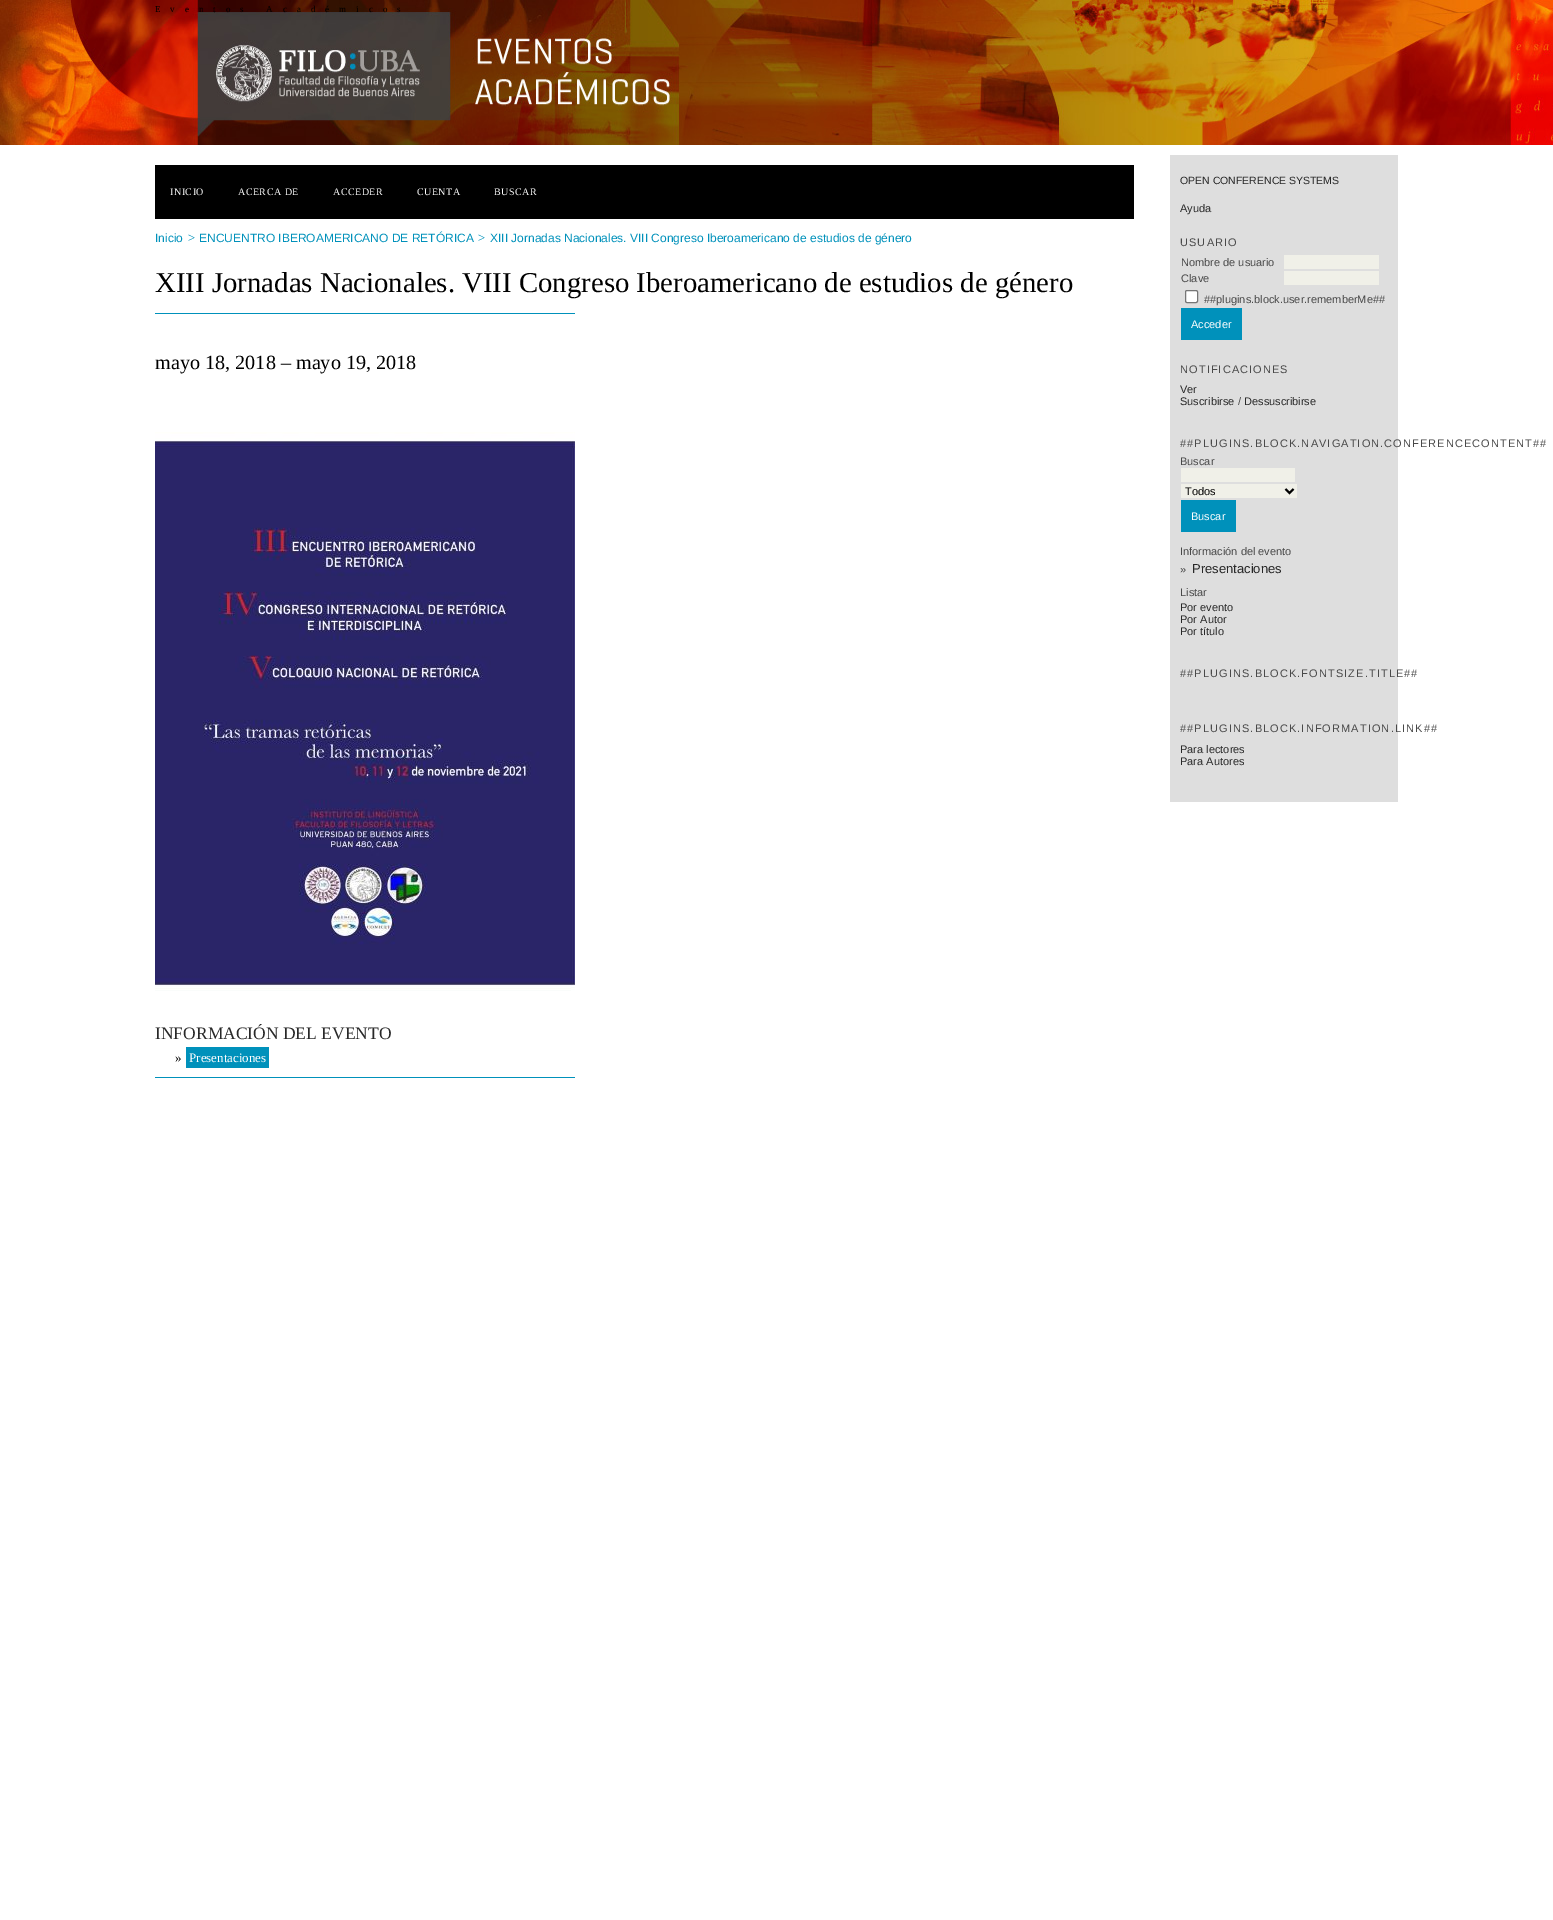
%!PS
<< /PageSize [1553 1920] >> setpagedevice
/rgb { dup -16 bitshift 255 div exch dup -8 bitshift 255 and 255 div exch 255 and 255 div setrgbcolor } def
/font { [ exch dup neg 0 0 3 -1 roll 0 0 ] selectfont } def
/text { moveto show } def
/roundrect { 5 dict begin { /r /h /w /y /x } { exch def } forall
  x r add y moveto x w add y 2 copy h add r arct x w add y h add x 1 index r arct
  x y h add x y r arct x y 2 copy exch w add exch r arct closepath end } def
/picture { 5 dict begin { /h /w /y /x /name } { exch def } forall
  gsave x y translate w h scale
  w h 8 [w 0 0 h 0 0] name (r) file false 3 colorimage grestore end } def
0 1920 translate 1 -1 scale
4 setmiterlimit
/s1 { /LiberationSans-Regular 12 font 16#0091BB rgb } def
/s2 { /LiberationSerif-Italic 13 font 16#0091BB rgb } def
/s3 { /LiberationSerif-Regular 28.8 font 16#000000 rgb } def
/s4 { /LiberationSerif-Regular 20.2 font 16#000000 rgb } def
/s5 { /LiberationSerif-Regular 17.5 font 16#282828 rgb } def
/s6 { /LiberationSerif-Regular 13 font 16#000000 rgb } def
/s7 { /LiberationSerif-Regular 13 font 16#FFFFFF rgb } def
/s8 { /LiberationSans-Regular 10.5 font 16#282828 rgb } def
/s9 { /LiberationSans-Regular 11 font 16#282828 rgb } def
/s10 { /LiberationSans-Regular 11 font 16#494949 rgb } def
/s11 { /LiberationSans-Regular 11 font 16#FFFFFF rgb } def
/s12 { /LiberationSans-Regular 11 font 16#000000 rgb } def
/s13 { /LiberationSans-Regular 13 font 16#282828 rgb } def
16#FFFFFF rgb
0 0 1553 1920 rectfill
(pic1.raw) 0 0 1553 145 picture
/LiberationSerif-Regular 9 font
16#000000 rgb
155 12 moveto 10 0 (Eventos Académicos) ashow
155 165 979 54 rectfill
/LiberationSerif-Regular 10 font
16#FFFFFF rgb
170 195 moveto 0.5 0 (INICIO) ashow
238 195 moveto 0.5 0 (ACERCA DE) ashow
333 195 moveto 0.5 0 (ACCEDER) ashow
417 195 moveto 0.5 0 (CUENTA) ashow
494 195 moveto 0.5 0 (BUSCAR) ashow
s1
(Inicio) 155 242 text
s2
(>) 187 242 text
s1
(ENCUENTRO IBEROAMERICANO DE RETÓRICA) 199 242 text
s2
(>) 477 242 text
s1
(XIII Jornadas Nacionales. VIII Congreso Iberoamericano de estudios de género) 490 242 text
s3
(XIII Jornadas Nacionales. VIII Congreso Iberoamericano de estudios de género) 155 292 text
16#0091BB rgb
155 313 420 1 rectfill
155 1077 420 1 rectfill
s4
(mayo 18, 2018 – mayo 19, 2018) 155 369 text
(pic2.raw) 155 432 420 559 picture
s5
(INFORMACIÓN DEL EVENTO) 155 1039 text
s6
(») 175 1062 text
16#0091BB rgb
186 1047 83 21 rectfill
s7
(Presentaciones) 189 1062 text
16#DEDEDE rgb
1170 155 228 647 rectfill
s8
(OPEN CONFERENCE SYSTEMS) 1180 184 text
s9
(Ayuda) 1180 212 text
16#494949 rgb
1180 246 moveto 1.1 0 (USUARIO) ashow
(Nombre de usuario) 1181 266 text
16#F0F0E8 rgb
1284 255 95 14 rectfill
s10
(Clave) 1181 282 text
16#F0F0E8 rgb
1284 271 95 14 rectfill
16#FFFFFF rgb
1185.5 290.5 12 12 1.5 roundrect gsave fill grestore
16#767676 rgb
stroke
s10
(##plugins.block.user.rememberMe##) 1204 303 text
16#0091BB rgb
1181 308 61 32 rectfill
s11
(Acceder) 1191 328 text
16#494949 rgb
1180 373 moveto 1.1 0 (NOTIFICACIONES) ashow
s9
(Ver) 1180 393 text
(Suscribirse) 1180 405 text
s10
(/) 1238 405 text
s9
(Dessuscribirse) 1244 405 text
16#494949 rgb
1180 447 moveto 1.1 0 (##PLUGINS.BLOCK.NAVIGATION.CONFERENCECONTENT##) ashow
(Buscar) 1180 465 text
16#F0F0E8 rgb
1181 468 114 14 rectfill
1181 484 116 14 rectfill
16#000000 rgb
2 setlinewidth
1285.5 489 moveto 1289.5 493 lineto 1293.5 489 lineto stroke
(Todos) 1185 495 text
16#0091BB rgb
1181 500 55 32 rectfill
s11
(Buscar) 1191 520 text
s10
(Información del evento) 1180 555 text
(») 1180 573 text
s13
(Presentaciones) 1192 573 text
s10
(Listar) 1180 596 text
s9
(Por evento) 1180 611 text
(Por Autor) 1180 623 text
(Por título) 1180 635 text
16#494949 rgb
1180 677 moveto 1.1 0 (##PLUGINS.BLOCK.FONTSIZE.TITLE##) ashow
1180 732 moveto 1.1 0 (##PLUGINS.BLOCK.INFORMATION.LINK##) ashow
s9
(Para lectores) 1180 753 text
(Para Autores) 1180 765 text
showpage
